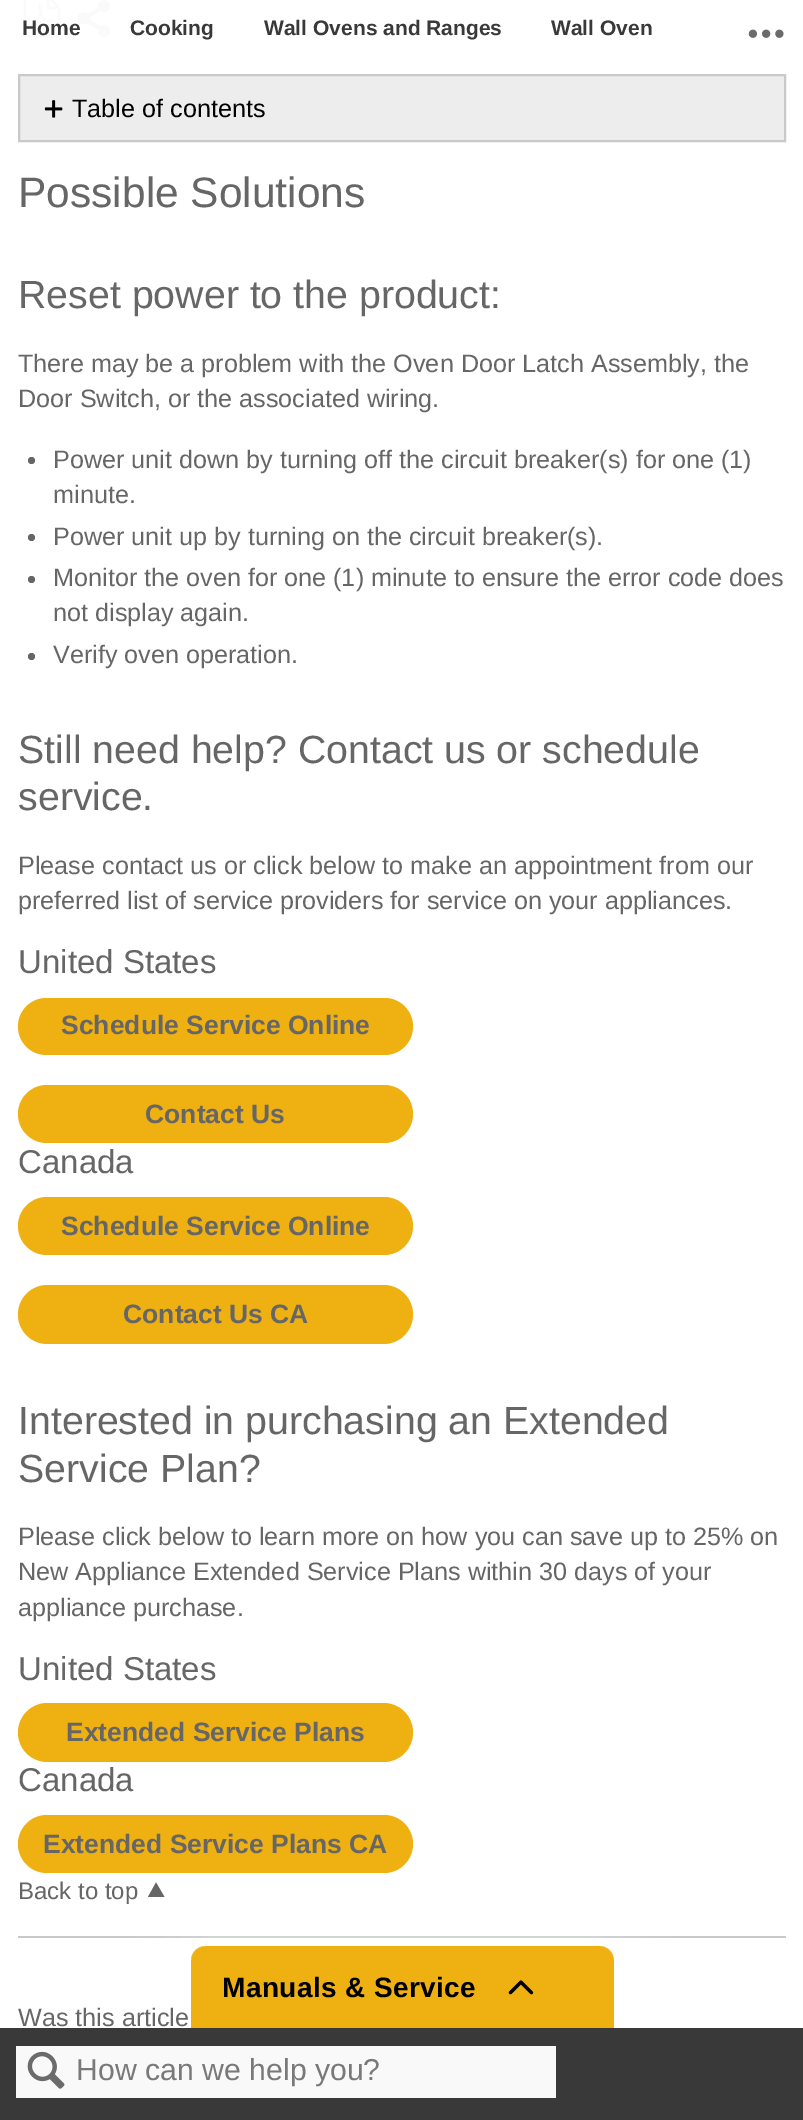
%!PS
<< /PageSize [803 2120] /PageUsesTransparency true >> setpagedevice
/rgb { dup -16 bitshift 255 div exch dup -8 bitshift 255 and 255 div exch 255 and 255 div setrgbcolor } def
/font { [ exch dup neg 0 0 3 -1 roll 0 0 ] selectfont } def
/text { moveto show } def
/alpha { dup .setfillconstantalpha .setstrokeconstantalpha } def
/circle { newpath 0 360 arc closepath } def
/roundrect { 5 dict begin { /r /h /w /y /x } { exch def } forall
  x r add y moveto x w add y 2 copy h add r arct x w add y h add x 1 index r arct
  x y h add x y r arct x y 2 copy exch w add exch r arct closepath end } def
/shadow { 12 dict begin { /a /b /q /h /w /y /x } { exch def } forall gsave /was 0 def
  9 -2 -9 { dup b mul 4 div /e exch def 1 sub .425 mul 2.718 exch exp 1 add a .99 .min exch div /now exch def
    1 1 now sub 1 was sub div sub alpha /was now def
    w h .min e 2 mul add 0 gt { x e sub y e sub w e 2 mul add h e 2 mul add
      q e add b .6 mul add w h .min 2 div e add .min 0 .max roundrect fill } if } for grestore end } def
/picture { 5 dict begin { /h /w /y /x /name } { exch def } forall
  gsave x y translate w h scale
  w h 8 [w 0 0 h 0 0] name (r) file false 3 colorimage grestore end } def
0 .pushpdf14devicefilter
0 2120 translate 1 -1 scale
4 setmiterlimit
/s1 { /LiberationSans-Bold 21 font 16#393939 rgb } def
/s2 { /LiberationSans-Regular 30.25 font 16#797979 rgb } def
/s3 { /LiberationSans-Regular 25.2 font 16#000000 rgb } def
/s4 { /LiberationSans-Regular 42.5 font 16#666666 rgb } def
/s5 { /LiberationSans-Regular 39.3 font 16#666666 rgb } def
/s6 { /LiberationSans-Regular 25.2 font 16#666666 rgb } def
/s7 { /LiberationSans-Regular 33 font 16#666666 rgb } def
/s8 { /LiberationSans-Bold 26.5 font 16#666666 rgb } def
/s9 { /LiberationSans-Regular 24 font 16#666666 rgb } def
16#FFFFFF rgb
0 0 803 2120 rectfill
(pic3.raw) 23 0 37 38 picture
(pic4.raw) 77 0 34 37 picture
s1
(Home) 22 35 text
(Cooking) 130 35 text
(Wall Ovens and Ranges) 264 35 text
(Wall Oven) 551 35 text
(pic1.raw) 748 29 36 9 picture
16#EEB111 rgb
18 1815 395 58 29 roundrect fill
205 1946 moveto 600 1946 lineto 607.5 1946 614 1952.5 614 1960 curveto 614 2030 lineto 191 2030 lineto 191 1960 lineto 191 1952.5 197.5 1946 205 1946 curveto closepath fill
16#F2F2F2 rgb
26 2055 543 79 14 roundrect fill
609 2055 moveto 803 2055 lineto 803 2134 lineto 609 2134 lineto 601.5 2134 595 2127.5 595 2120 curveto 595 2069 lineto 595 2061.5 601.5 2055 609 2055 curveto closepath fill
16#C9C9C9 rgb
18 1936 768 2 rectfill
16#666666 rgb
148 1897 moveto 164.5 1897 lineto 156 1882.5 lineto closepath fill
gsave
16 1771 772 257 rectclip
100 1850 moveto 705 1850 lineto 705 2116 lineto 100 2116 lineto closepath 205 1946 moveto 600 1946 lineto 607.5 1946 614 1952.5 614 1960 curveto 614 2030 lineto 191 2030 lineto 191 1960 lineto 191 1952.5 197.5 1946 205 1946 curveto closepath eoclip newpath
16#FFFFFF rgb
191 1941 423 84 14 30 0.35 shadow
grestore
0.97 alpha
16#333333 rgb
0 2030 803 90 rectfill
0 2028 803 2 rectfill
16#FFFFFF rgb
16 2046 540 52 rectfill
1 alpha
(pic2.raw) 27 2051 38 38 picture
s2
(How can we help you?) 76 2080 text
16#EDEDED rgb
19 75 moveto 785 75 lineto 785 141 lineto 19 141 lineto closepath gsave fill grestore
16#C9C9C9 rgb
2 setlinewidth
stroke
(pic5.raw) 44 100 19 18 picture
s3
(Table of contents) 72 117 text
s4
(Possible Solutions) 18 207 text
s5
(Reset power to the product:) 18 308 text
s6
(There may be a problem with the Oven Door Latch Assembly, the) 18 372 text
(Door Switch, or the associated wiring.) 18 407 text
31.5 460.5 3.5 circle fill
(Power unit down by turning off the circuit breaker\(s\) for one \(1\)) 53 468 text
(minute.) 53 503 text
31.5 537.5 3.5 circle fill
(Power unit up by turning on the circuit breaker\(s\).) 53 545 text
31.5 579.5 3.5 circle fill
(Monitor the oven for one \(1\) minute to ensure the error code does) 53 586 text
(not display again.) 53 621 text
31.5 656.5 3.5 circle fill
(Verify oven operation.) 53 663 text
s5
(Still need help? Contact us or schedule) 18 763 text
(service.) 18 810 text
s6
(Please contact us or click below to make an appointment from our) 18 874 text
(preferred list of service providers for service on your appliances.) 18 909 text
s7
(United States) 18 973 text
16#EEB111 rgb
18 998 395 57 28.5 roundrect fill
s8
(Schedule Service Online) 61 1034 text
16#EEB111 rgb
18 1085 395 58 29 roundrect fill
s8
(Contact Us) 145 1123 text
s7
(Canada) 18 1173 text
16#EEB111 rgb
18 1197 395 58 29 roundrect fill
s8
(Schedule Service Online) 61 1235 text
16#EEB111 rgb
18 1285 395 59 29.5 roundrect fill
s8
(Contact Us CA) 123 1323 text
s5
(Interested in purchasing an Extended) 18 1434 text
(Service Plan?) 18 1482 text
s6
(Please click below to learn more on how you can save up to 25% on) 18 1545 text
(New Appliance Extended Service Plans within 30 days of your) 18 1580 text
(appliance purchase.) 18 1616 text
s7
(United States) 18 1680 text
16#EEB111 rgb
18 1703 395 59 29.5 roundrect fill
s8
(Extended Service Plans) 66 1741 text
s7
(Canada) 18 1791 text
s8
(Extended Service Plans CA) 43 1853 text
/LiberationSans-Bold 28 font
16#000000 rgb
222 1997 moveto 0.4 0 (Manuals & Service) ashow
(pic6.raw) 508 1980 26 15 picture
s9
(Back to top) 18 1899 text
s6
(Was this article) 18 2026 text
.poppdf14devicefilter showpage
